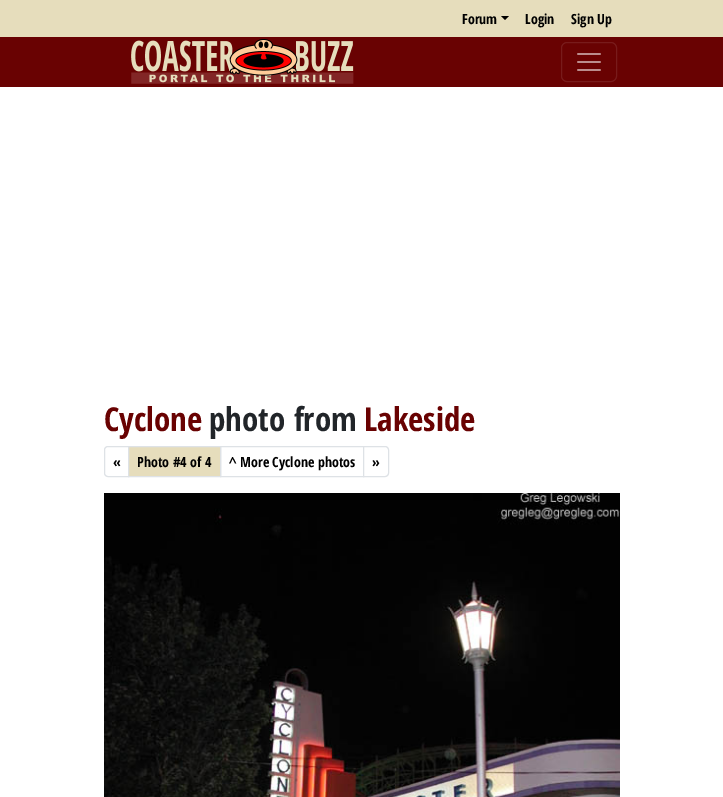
%!PS
<< /PageSize [723 797] >> setpagedevice
/rgb { dup -16 bitshift 255 div exch dup -8 bitshift 255 and 255 div exch 255 and 255 div setrgbcolor } def
/font { [ exch dup neg 0 0 3 -1 roll 0 0 ] selectfont } def
/text { moveto show } def
/roundrect { 5 dict begin { /r /h /w /y /x } { exch def } forall
  x r add y moveto x w add y 2 copy h add r arct x w add y h add x 1 index r arct
  x y h add x y r arct x y 2 copy exch w add exch r arct closepath end } def
/picture { 5 dict begin { /h /w /y /x /name } { exch def } forall
  gsave x y translate w h scale
  w h 8 [w 0 0 h 0 0] name (r) file false 3 colorimage grestore end } def
0 797 translate 1 -1 scale
4 setmiterlimit
/s1 { /OpenSansCondensed-Bold 14 font 16#000000 rgb } def
/s2 { /OpenSansCondensed-Bold 33 font 16#690202 rgb } def
/s3 { /OpenSansCondensed-Bold 33 font 16#212529 rgb } def
16#FFFFFF rgb
0 0 723 797 rectfill
16#E6DDBC rgb
0 0 723 37 rectfill
s1
(Forum) 462 24 text
501 16 moveto 509 16 lineto 505 20 lineto closepath fill
(Login) 525 24 text
(Sign Up) 571 24 text
16#690202 rgb
0 37 723 50 rectfill
(pic1.raw) 131 39 223 45 picture
16#781B1B rgb
561.5 42.5 55 39 5.5 roundrect stroke
(pic2.raw) 577 53 24 18 picture
s2
(Cyclone) 104 431 text
s3
(photo from) 209 431 text
s2
(Lakeside) 364 431 text
16#DEE2E6 rgb
108 446.5 moveto 128.5 446.5 lineto 128.5 476.5 lineto 108 476.5 lineto 106 476.5 104.5 475 104.5 473 curveto 104.5 450 lineto 104.5 448 106 446.5 108 446.5 curveto closepath stroke
s1
(«) 113 467 text
16#DEE2E6 rgb
220.5 446.5 143 30 rectstroke
16#E6DDBC rgb
128.5 446.5 moveto 220.5 446.5 lineto 220.5 476.5 lineto 128.5 476.5 lineto closepath gsave fill grestore
16#DEE2E6 rgb
stroke
s1
(Photo #4 of 4) 137 467 text
(^ More Cyclone photos) 229 467 text
16#FFFFFF rgb
363.5 446.5 moveto 385 446.5 lineto 387 446.5 388.5 448 388.5 450 curveto 388.5 473 lineto 388.5 475 387 476.5 385 476.5 curveto 363.5 476.5 lineto closepath gsave fill grestore
16#DEE2E6 rgb
stroke
s1
(») 372 467 text
(pic3.raw) 104 493 516 304 picture
showpage
